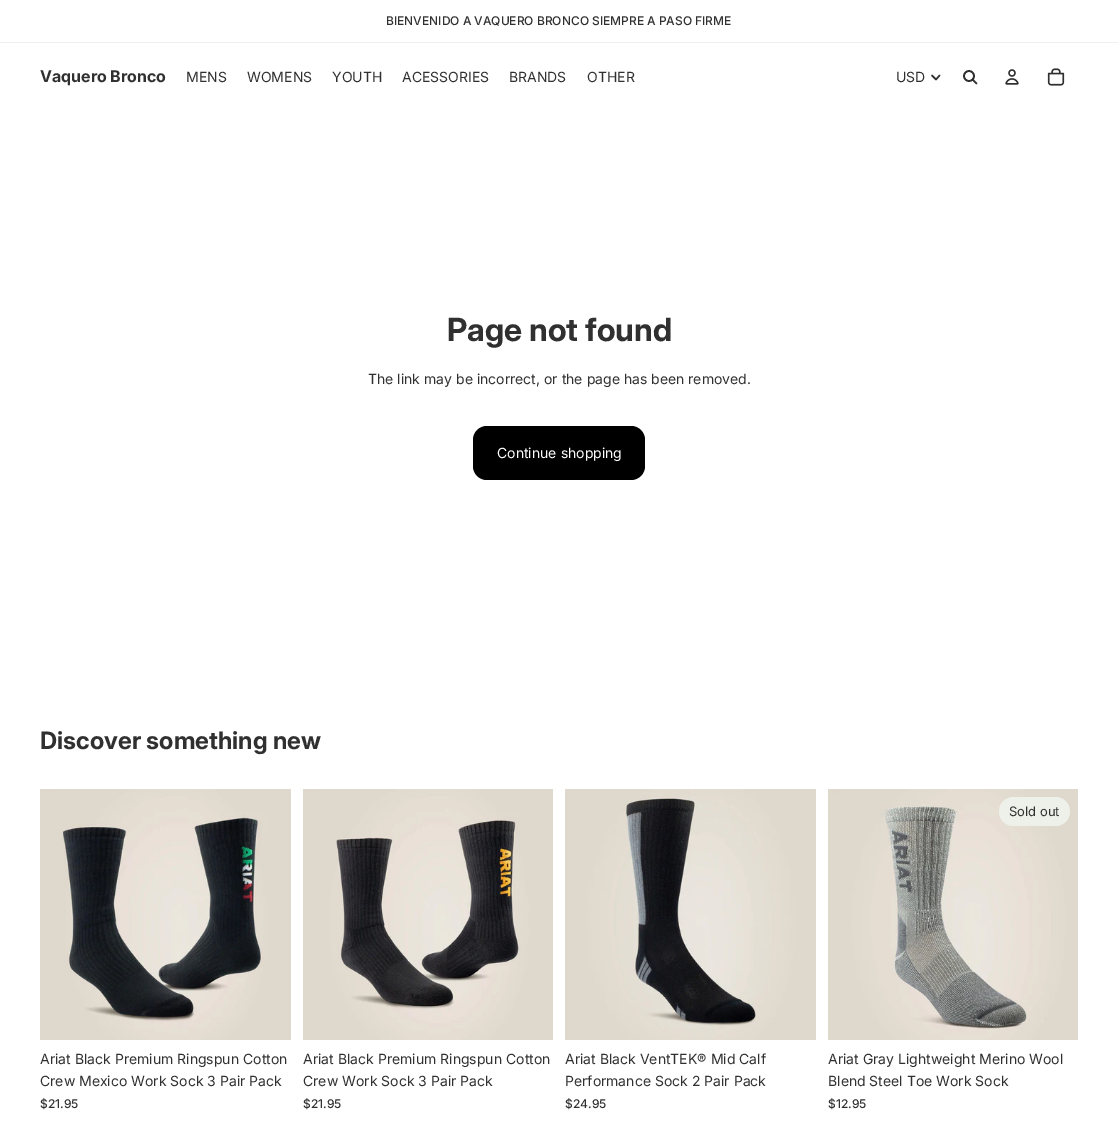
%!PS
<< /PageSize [1118 1140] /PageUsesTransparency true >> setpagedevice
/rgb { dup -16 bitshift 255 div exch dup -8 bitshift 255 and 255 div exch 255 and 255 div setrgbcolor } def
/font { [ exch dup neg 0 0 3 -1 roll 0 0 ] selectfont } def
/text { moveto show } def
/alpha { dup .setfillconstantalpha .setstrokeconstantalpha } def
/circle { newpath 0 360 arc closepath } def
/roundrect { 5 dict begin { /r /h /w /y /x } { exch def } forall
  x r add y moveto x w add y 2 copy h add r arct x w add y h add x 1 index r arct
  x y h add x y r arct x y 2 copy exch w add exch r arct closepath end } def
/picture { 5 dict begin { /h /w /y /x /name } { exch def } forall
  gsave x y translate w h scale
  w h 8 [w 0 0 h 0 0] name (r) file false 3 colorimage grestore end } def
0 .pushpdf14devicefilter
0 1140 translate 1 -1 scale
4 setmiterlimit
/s1 { /Inter-Medium 12 font 16#303030 rgb } def
/s2 { /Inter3-Bold 16 font 16#303030 rgb } def
/s3 { /Inter-Regular 14 font 16#303030 rgb } def
/s4 { /Inter-Bold 32 font 16#303030 rgb } def
/s5 { /Inter-Regular 14 font 16#FFFFFF rgb } def
/s6 { /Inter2-Bold 24 font 16#303030 rgb } def
/s7 { /Inter-Regular 13 font 16#303030 rgb } def
16#FFFFFF rgb
0 0 1118 1140 rectfill
16#F0F0F0 rgb
0 42 1118 1 rectfill
s1
(BIENVENIDO A VAQUERO BRONCO SIEMPRE A PASO FIRME) 386 25 text
s2
(Vaquero Bronco) 40 82 text
s3
(MENS) 186 82 text
(WOMENS) 247 82 text
(YOUTH) 332 82 text
(ACESSORIES) 402 82 text
(BRANDS) 509 82 text
(OTHER) 587 82 text
(USD) 896 82 text
1.5 setlinewidth
1 setlinecap
1 setlinejoin
939.5 75.5 moveto 936 79.5 lineto 932 75.5 lineto stroke
1.7 setlinewidth
0 setlinecap
0 setlinejoin
969 76 5 circle stroke
0.81 alpha
16#000000 rgb
1 setlinecap
1 setlinejoin
973 80 moveto 976.5 83.5 lineto stroke
1 alpha
(pic1.raw) 1005 69 14 16 picture
(pic2.raw) 1047 68 18 18 picture
s4
(Page not found) 447 341 text
s3
(The link may be incorrect, or the page has been removed.) 368 384 text
16#000000 rgb
473 426 172 54 14 roundrect fill
s5
(Continue shopping) 497 458 text
s6
(Discover something new) 40 749 text
(pic3.raw) 40 789 251 251 picture
s3
(Ariat Black Premium Ringspun Cotton) 40 1064 text
(Crew Mexico Work Sock 3 Pair Pack) 40 1086 text
s1
($21.95) 40 1108 text
(pic4.raw) 303 789 250 251 picture
s3
(Ariat Black Premium Ringspun Cotton) 303 1064 text
(Crew Work Sock 3 Pair Pack) 303 1086 text
s1
($21.95) 303 1108 text
(pic5.raw) 565 789 251 251 picture
s3
(Ariat Black VentTEK® Mid Calf) 565 1064 text
(Performance Sock 2 Pair Pack) 565 1086 text
s1
($24.95) 565 1108 text
(pic6.raw) 828 789 250 251 picture
16#EEF1EA rgb
999 797 71 29 14.5 roundrect fill
s7
(Sold out) 1009 816 text
s3
(Ariat Gray Lightweight Merino Wool) 828 1064 text
(Blend Steel Toe Work Sock) 828 1086 text
s1
($12.95) 828 1108 text
.poppdf14devicefilter showpage
